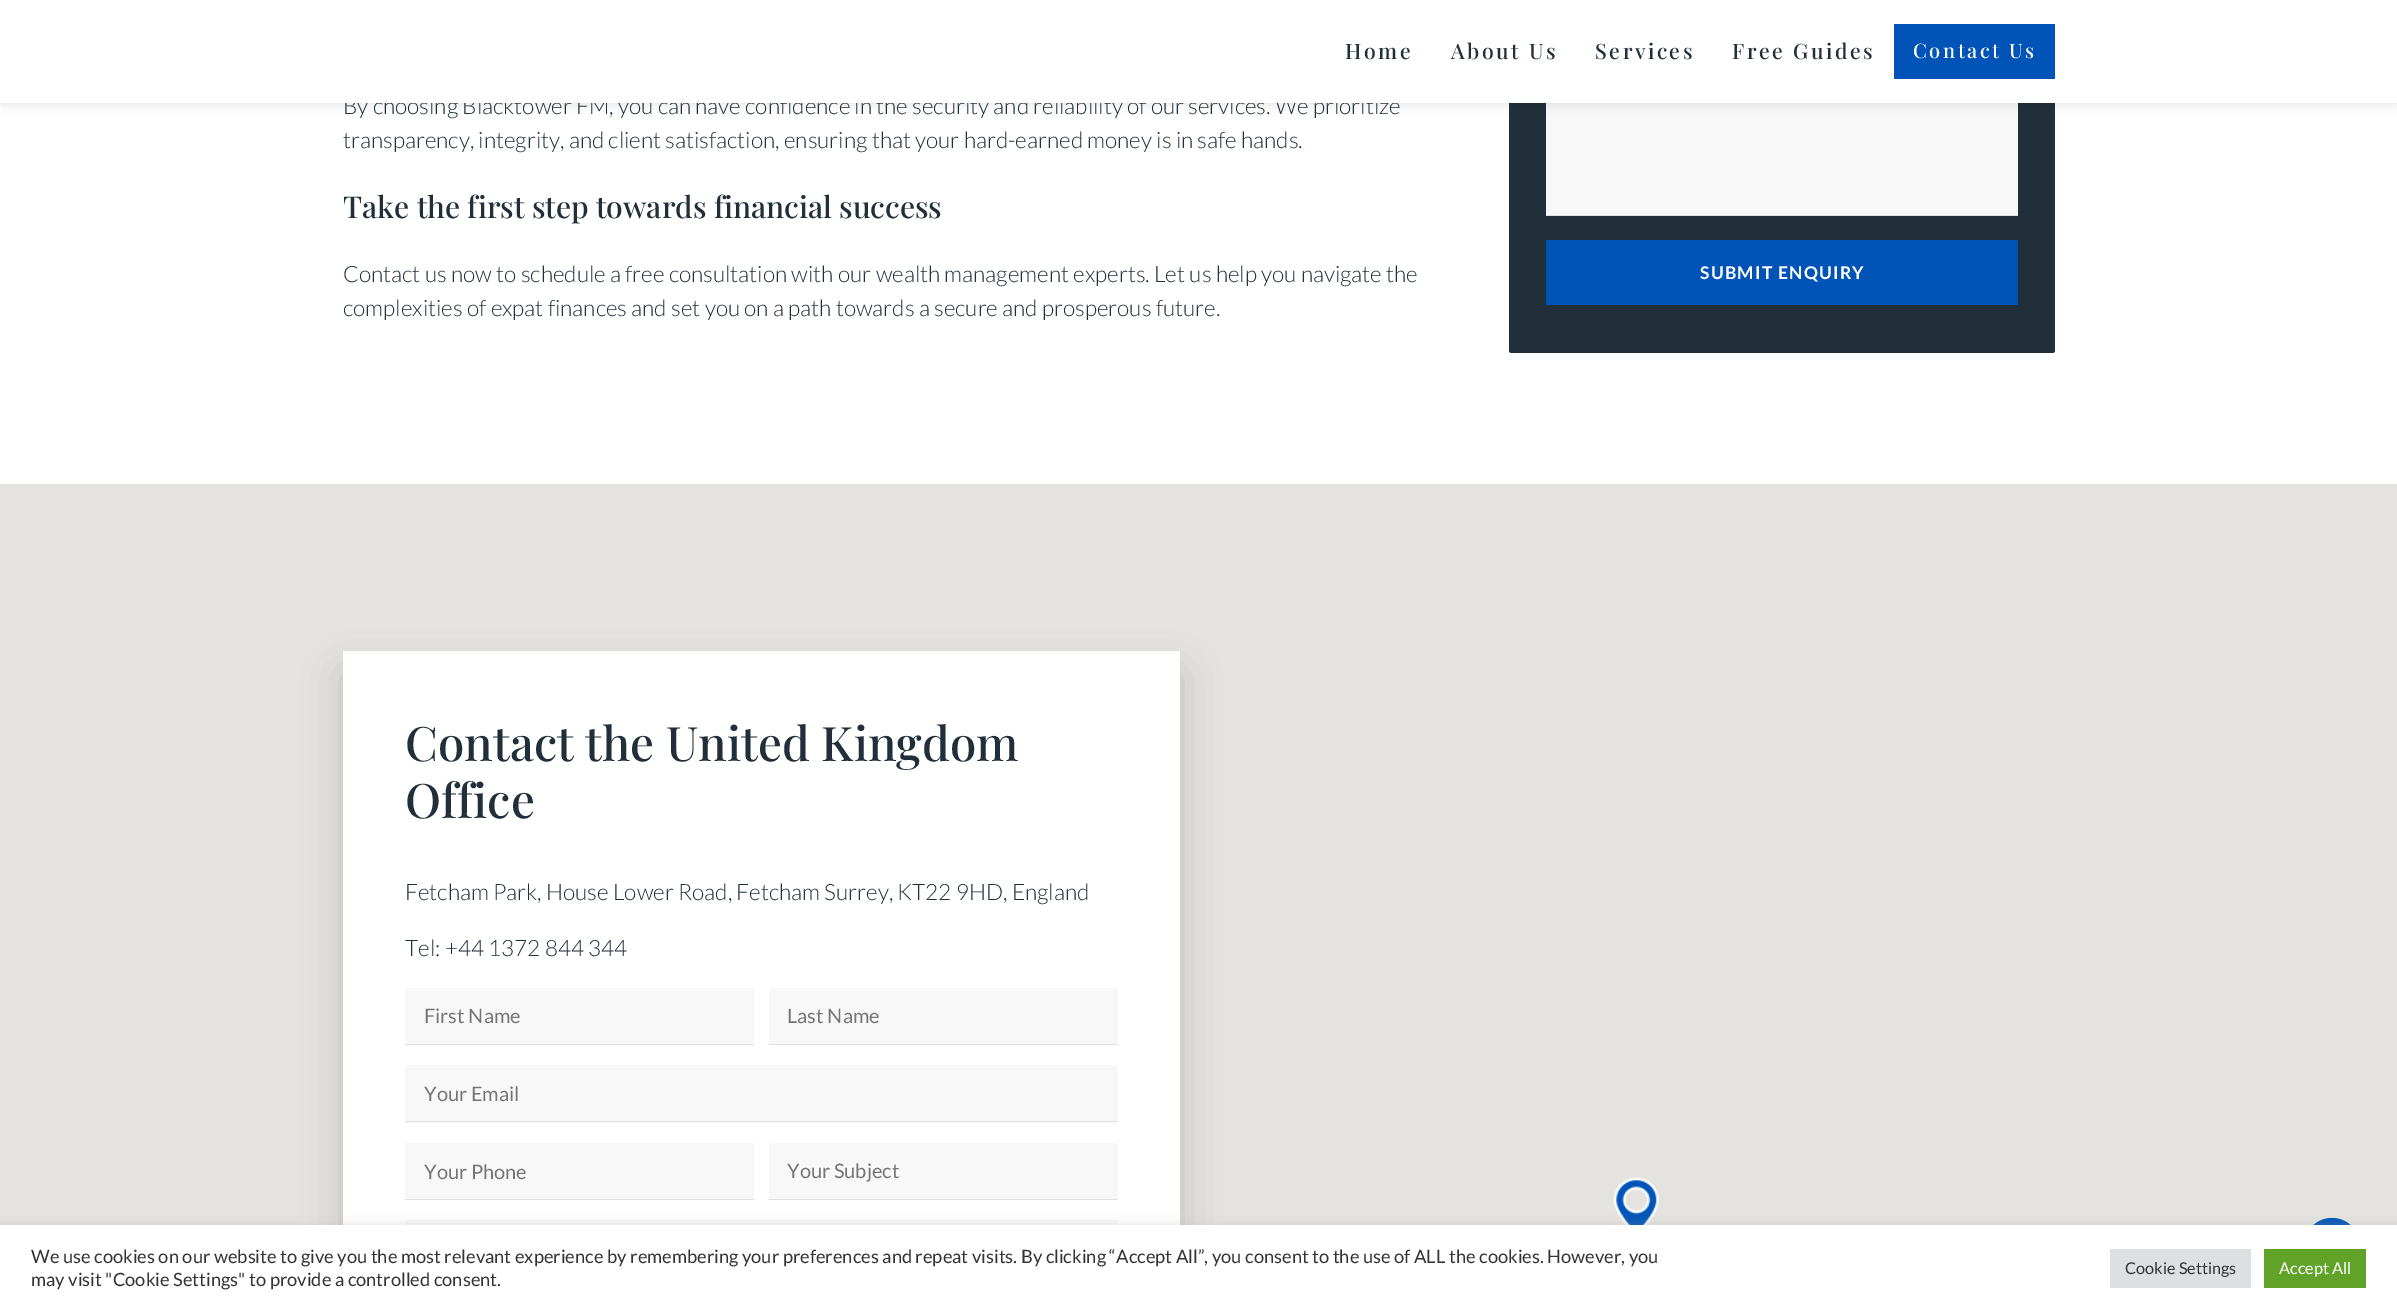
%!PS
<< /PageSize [2397 1311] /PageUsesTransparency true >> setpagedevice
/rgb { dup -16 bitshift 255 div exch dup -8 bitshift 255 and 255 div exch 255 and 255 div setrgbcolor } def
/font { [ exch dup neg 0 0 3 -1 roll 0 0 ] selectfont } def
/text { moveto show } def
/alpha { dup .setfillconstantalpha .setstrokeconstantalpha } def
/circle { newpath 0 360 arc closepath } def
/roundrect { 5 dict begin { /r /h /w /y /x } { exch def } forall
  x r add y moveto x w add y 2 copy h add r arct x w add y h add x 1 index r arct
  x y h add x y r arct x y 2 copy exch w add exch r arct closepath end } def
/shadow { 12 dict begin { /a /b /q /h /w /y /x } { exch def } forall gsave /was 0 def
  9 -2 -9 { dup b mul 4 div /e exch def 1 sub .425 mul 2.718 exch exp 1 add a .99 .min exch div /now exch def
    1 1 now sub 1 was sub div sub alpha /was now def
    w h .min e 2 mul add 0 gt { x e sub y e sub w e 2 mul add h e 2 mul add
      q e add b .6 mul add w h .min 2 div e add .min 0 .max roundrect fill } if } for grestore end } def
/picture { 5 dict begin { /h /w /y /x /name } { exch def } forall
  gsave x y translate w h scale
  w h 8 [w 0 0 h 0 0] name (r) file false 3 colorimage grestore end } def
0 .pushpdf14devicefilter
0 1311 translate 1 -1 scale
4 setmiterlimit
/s1 { /Lato-Light 22.5 font 16#202F3A rgb } def
/s2 { /PlayfairDisplay-Medium 30 font 16#202F3A rgb } def
/s3 { /PlayfairDisplay-Medium 47.5 font 16#202F3A rgb } def
/s4 { /Lato-Regular 20 font 16#757575 rgb } def
/s5 { /Lato-Regular 18.33 font 16#333333 rgb } def
/s6 { /Lato-Regular 16.25 font 16#333333 rgb } def
/s7 { /Lato-Regular 16.25 font 16#FFFFFF rgb } def
16#FFFFFF rgb
0 0 2397 1311 rectfill
16#202F3A rgb
1509 -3 546 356 2.5 roundrect fill
16#F8F8F8 rgb
1546 103 472 112 rectfill
16#000000 rgb
1 5 2395 100 0 5 0.1 shadow
s1
(By choosing Blacktower FM, you can have confidence in the security and reliability of our services. We prioritize) 343 114 text
16#FFFFFF rgb
0 0 2397 103 rectfill
/PlayfairDisplay-Medium 21.25 font
16#202F3A rgb
1345 59 moveto 2.5 0 (Home) ashow
1451 59 moveto 2.5 0 (About Us) ashow
1595 59 moveto 2.5 0 (Services) ashow
1732 59 moveto 2.5 0 (Free Guides) ashow
16#0053B7 rgb
1894 24 161 55 rectfill
/PlayfairDisplay-Medium 20 font
16#FFFFFF rgb
1913 58 moveto 2.5 0 (Contact Us) ashow
s1
(transparency, integrity, and client satisfaction, ensuring that your hard-earned money is in safe hands.) 343 148 text
s2
(Take the first step towards financial success) 343 218 text
s1
(Contact us now to schedule a free consultation with our wealth management experts. Let us help you navigate the) 343 282 text
(complexities of expat finances and set you on a path towards a secure and prosperous future.) 343 316 text
16#DFDFDF rgb
1546 215 472 1 rectfill
16#0053B7 rgb
1546 240 472 65 rectfill
/Lato-Bold 17.5 font
16#FFFFFF rgb
1700 279 moveto 1.25 0 (SUBMIT ENQUIRY) ashow
16#E5E3DF rgb
0 484 2397 741 rectfill
(pic1.raw) 1613 1177 46 48 picture
16#000000 rgb
343 673 837 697 0 19.5 0.16 shadow
16#FFFFFF rgb
343 651 837 574 rectfill
s3
(Contact the United Kingdom) 405 761 text
(Office) 405 818 text
s1
(Fetcham Park, House Lower Road, Fetcham Surrey, KT22 9HD, England) 405 900 text
(Tel: +44 1372 844 344) 405 956 text
16#F8F8F8 rgb
405 988 349 56 rectfill
16#DFDFDF rgb
405 1044 349 1 rectfill
s4
(First Name) 424 1023 text
16#F8F8F8 rgb
769 988 349 56 rectfill
16#DFDFDF rgb
769 1044 349 1 rectfill
s4
(Last Name) 787 1023 text
16#F8F8F8 rgb
405 1065 713 58 rectfill
16#DFDFDF rgb
405 1121 713 1 rectfill
s4
(Your Email) 424 1101 text
16#F8F8F8 rgb
405 1143 349 56 rectfill
16#DFDFDF rgb
405 1199 349 1 rectfill
s4
(Your Phone) 424 1179 text
16#F8F8F8 rgb
769 1143 349 56 rectfill
16#DFDFDF rgb
769 1199 349 1 rectfill
s4
(Your Subject) 787 1178 text
16#F8F8F8 rgb
405 1220 713 5 rectfill
16#0053B7 rgb
2332 1246 28 circle fill
16#ACABAB rgb
0 1224 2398 86 0 6 0.3 shadow
16#FFFFFF rgb
0 1225 2397 86 rectfill
s5
(We use cookies on our website to give you the most relevant experience by remembering your preferences and repeat visits. By clicking “Accept All”, you consent to the use of ALL the cookies. However, you) 31 1263 text
(may visit "Cookie Settings" to provide a controlled consent.) 31 1286 text
16#DEDFE0 rgb
2110 1249 141 39 rectfill
s6
(Cookie Settings) 2125 1274 text
16#61A229 rgb
2264 1249 102 39 rectfill
s7
(Accept All) 2279 1274 text
.poppdf14devicefilter showpage
